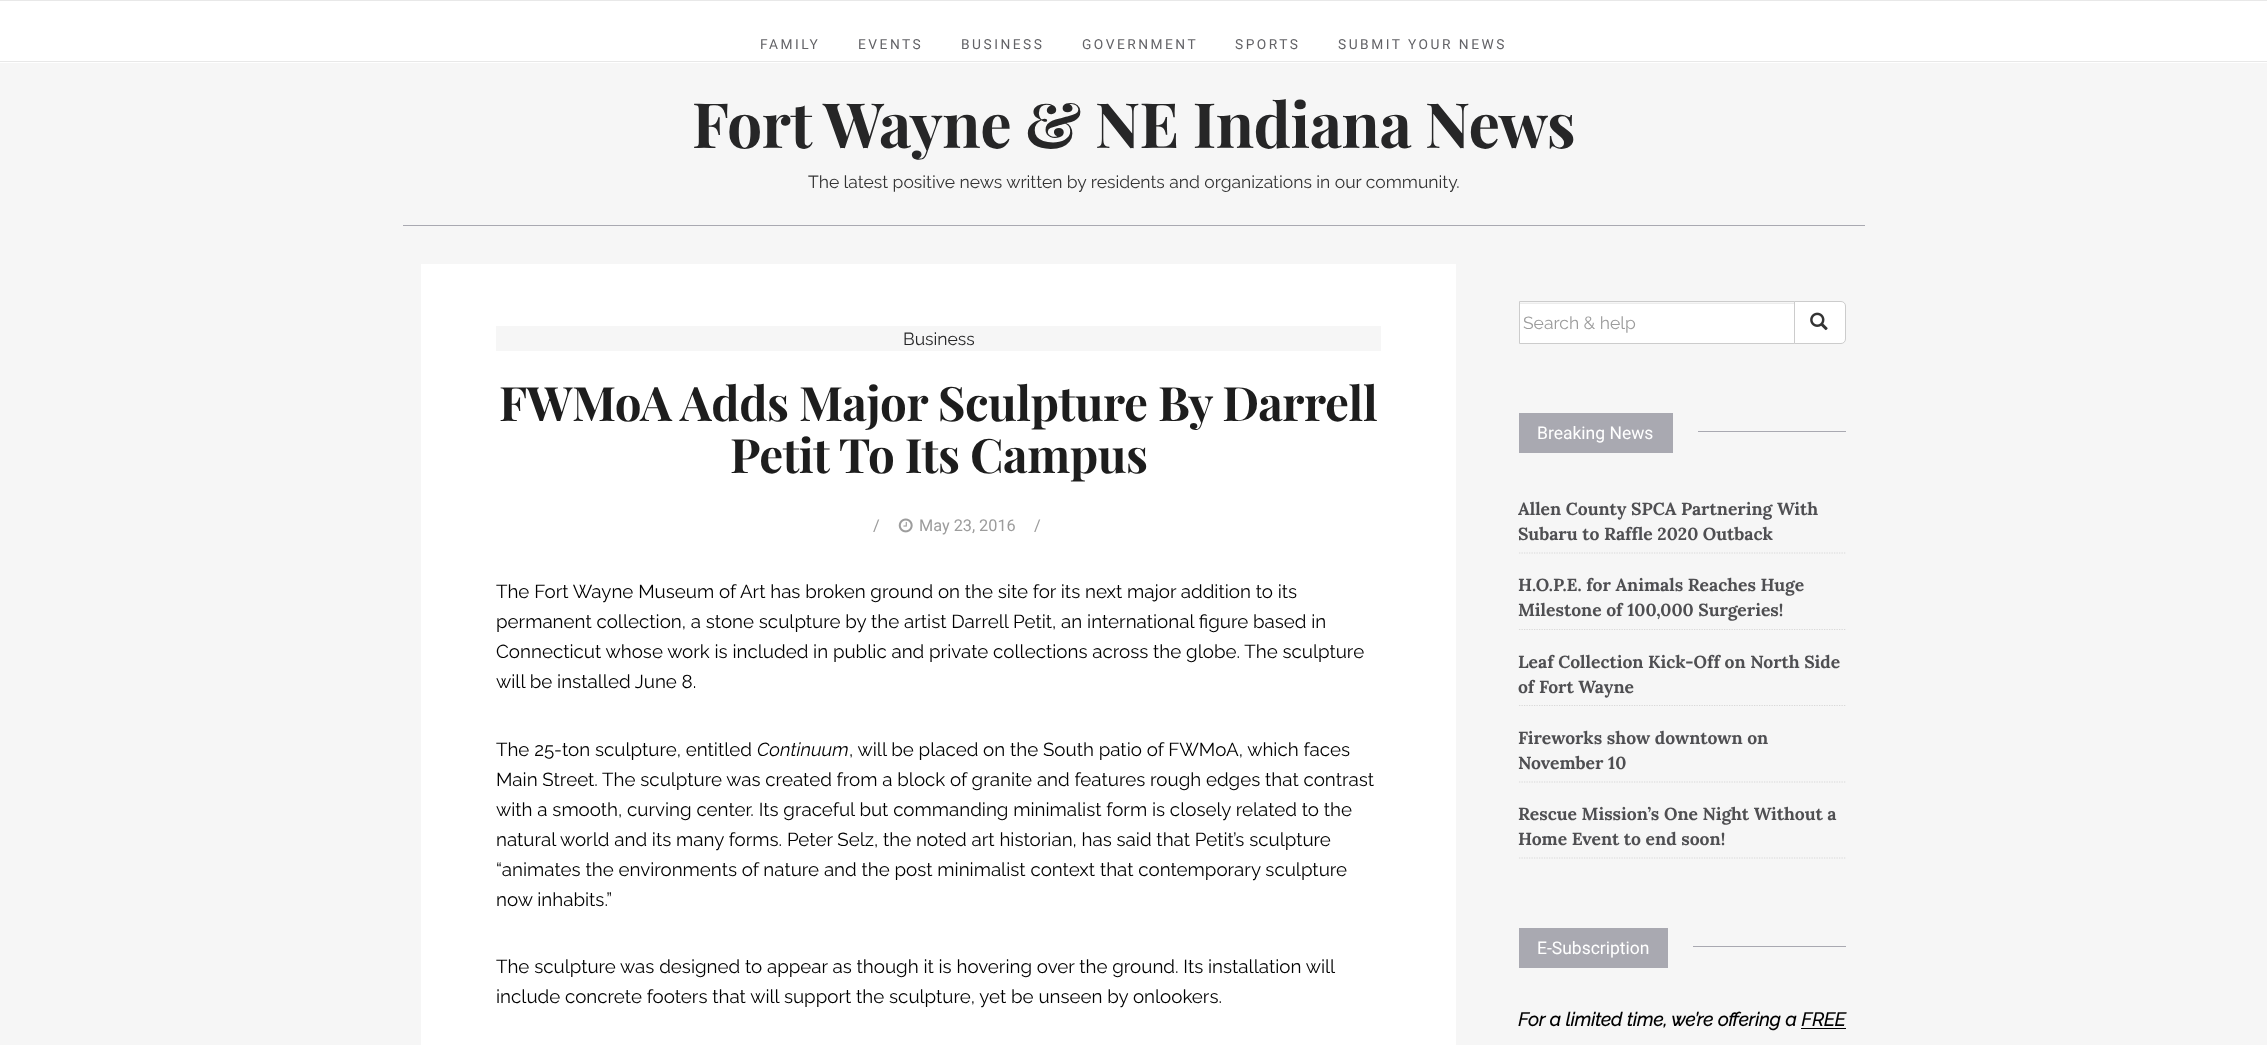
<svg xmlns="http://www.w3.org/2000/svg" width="2267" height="1045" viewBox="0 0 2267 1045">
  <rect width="100%" height="100%" fill="#f6f6f6"/>
  <path d="M0 1h2267v62H0z" fill="#fff"/>
  <path d="M0 0h2267v1H0z" fill="#e8e8e8"/>
  <path d="M0 61h2267v1H0z" fill="#e8e8e8"/>
  <path d="M403 225h1462v1H403z" fill="#a9a9b1"/>
  <path d="M421 264h1035v781H421z" fill="#fff"/>
  <path d="M496 326h885v25H496z" fill="#f6f6f6"/>
  <image x="898" y="518" width="15" height="15" href="img/1.png"/>
  <path d="M1520 304h274v39H1520z" fill="#fff"/>
  <path d="M1520 303h274v1H1520z" fill="#ececec"/>
  <path d="M1519.5 301.5h275v42H1519.5z" fill="none" stroke="#ccc"/>
  <path d="M1794.5 301.5H1841C1843.5 301.5 1845.5 303.5 1845.5 306V339C1845.5 341.5 1843.5 343.5 1841 343.5H1794.5Z" fill="#fff" stroke="#ccc"/>
  <image x="1810" y="312" width="18" height="19" href="img/2.png"/>
  <path d="M1519 413h154v40H1519z" fill="#a9a9b1"/>
  <path d="M1698 431h148v1H1698z" fill="#a9a9b1"/>
  <path d="M1519 553H1846" fill="none" stroke="#d8d8d8" stroke-width="1.2" stroke-dasharray="1.25 1.25"/>
  <path d="M1519 629.5H1846" fill="none" stroke="#d8d8d8" stroke-width="1.2" stroke-dasharray="1.25 1.25"/>
  <path d="M1519 705.5H1846" fill="none" stroke="#d8d8d8" stroke-width="1.2" stroke-dasharray="1.25 1.25"/>
  <path d="M1519 782H1846" fill="none" stroke="#d8d8d8" stroke-width="1.2" stroke-dasharray="1.25 1.25"/>
  <path d="M1519 858H1846" fill="none" stroke="#d8d8d8" stroke-width="1.2" stroke-dasharray="1.25 1.25"/>
  <path d="M1519 928h149v40H1519z" fill="#a9a9b1"/>
  <path d="M1693 946h153v1H1693z" fill="#a9a9b1"/>
  <path d="M1801 1028h45v1H1801z" fill="#000"/>
  <g font-family="Roboto" font-size="13.75" letter-spacing="2.5" fill="#636367">
    <text x="760" y="49">FAMILY</text>
    <text x="858" y="49">EVENTS</text>
    <text x="961" y="49">BUSINESS</text>
    <text x="1082" y="49">GOVERNMENT</text>
    <text x="1235" y="49">SPORTS</text>
    <text x="1338" y="49">SUBMIT YOUR NEWS</text>
  </g>
  <text x="692" y="148" font-family="Playfair Display" font-size="62.5" font-weight="bold" letter-spacing="-0.5" fill="#262627">Fort Wayne &amp; NE Indiana News</text>
  <text x="808" y="188" font-family="Raleway" font-size="17.5" fill="#333">The latest positive news written by residents and organizations in our community.</text>
  <text x="903" y="345" font-family="Raleway" font-size="17.5" fill="#262627">Business</text>
  <g font-family="Playfair Display" font-size="47.5" font-weight="bold" letter-spacing="-0.5" fill="#1d1d1d">
    <text x="499" y="421">FWMoA Adds Major Sculpture By Darrell</text>
    <text x="730" y="473">Petit To Its Campus</text>
  </g>
  <g font-family="Roboto" font-size="16.25" fill="#9c9c9c">
    <text x="873" y="531">/</text>
    <text x="919" y="531">May 23, 2016</text>
    <text x="1034" y="531">/</text>
  </g>
  <g font-family="Raleway" font-size="18.75" fill="#000">
    <text x="496" y="598">The Fort Wayne Museum of Art has broken ground on the site for its next major addition to its</text>
    <text x="496" y="628">permanent collection, a stone sculpture by the artist Darrell Petit, an international figure based in</text>
    <text x="496" y="658">Connecticut whose work is included in public and private collections across the globe. The sculpture</text>
    <text x="496" y="688">will be installed June 8.</text>
    <text x="496" y="756">The 25-ton sculpture, entitled</text>
  </g>
  <text x="757" y="756" font-family="Raleway" font-size="18.75" font-weight="100" font-style="italic" fill="#000">Continuum</text>
  <g font-family="Raleway" font-size="18.75" fill="#000">
    <text x="849" y="756">, will be placed on the South patio of FWMoA, which faces</text>
    <text x="496" y="786">Main Street. The sculpture was created from a block of granite and features rough edges that contrast</text>
    <text x="496" y="816">with a smooth, curving center. Its graceful but commanding minimalist form is closely related to the</text>
    <text x="496" y="846">natural world and its many forms. Peter Selz, the noted art historian, has said that Petit’s sculpture</text>
    <text x="496" y="876">“animates the environments of nature and the post minimalist context that contemporary sculpture</text>
    <text x="496" y="906">now inhabits.”</text>
    <text x="496" y="973">The sculpture was designed to appear as though it is hovering over the ground. Its installation will</text>
    <text x="496" y="1003">include concrete footers that will support the sculpture, yet be unseen by onlookers.</text>
  </g>
  <text x="1523" y="329" font-family="Raleway" font-size="17.5" fill="#9c9c9c">Search &amp; help</text>
  <text x="1537" y="439" font-family="Roboto" font-size="17.5" fill="#fff">Breaking News</text>
  <g font-family="Lora" font-size="17.5" font-weight="bold" fill="#4f4f52">
    <text x="1518" y="515">Allen County SPCA Partnering With</text>
    <text x="1518" y="540">Subaru to Raffle 2020 Outback</text>
    <text x="1518" y="591">H.O.P.E. for Animals Reaches Huge</text>
    <text x="1518" y="616">Milestone of 100,000 Surgeries!</text>
    <text x="1518" y="668">Leaf Collection Kick-Off on North Side</text>
    <text x="1518" y="693">of Fort Wayne</text>
    <text x="1518" y="744">Fireworks show downtown on</text>
    <text x="1518" y="769">November 10</text>
    <text x="1518" y="820">Rescue Mission’s One Night Without a</text>
    <text x="1518" y="845">Home Event to end soon!</text>
  </g>
  <text x="1537" y="954" font-family="Roboto" font-size="17.5" fill="#fff">E-Subscription</text>
  <text x="1518" y="1026" font-family="Raleway" font-size="18.75" font-weight="bold" font-style="italic" fill="#000">For a limited time, we’re offering a FREE</text>
</svg>
